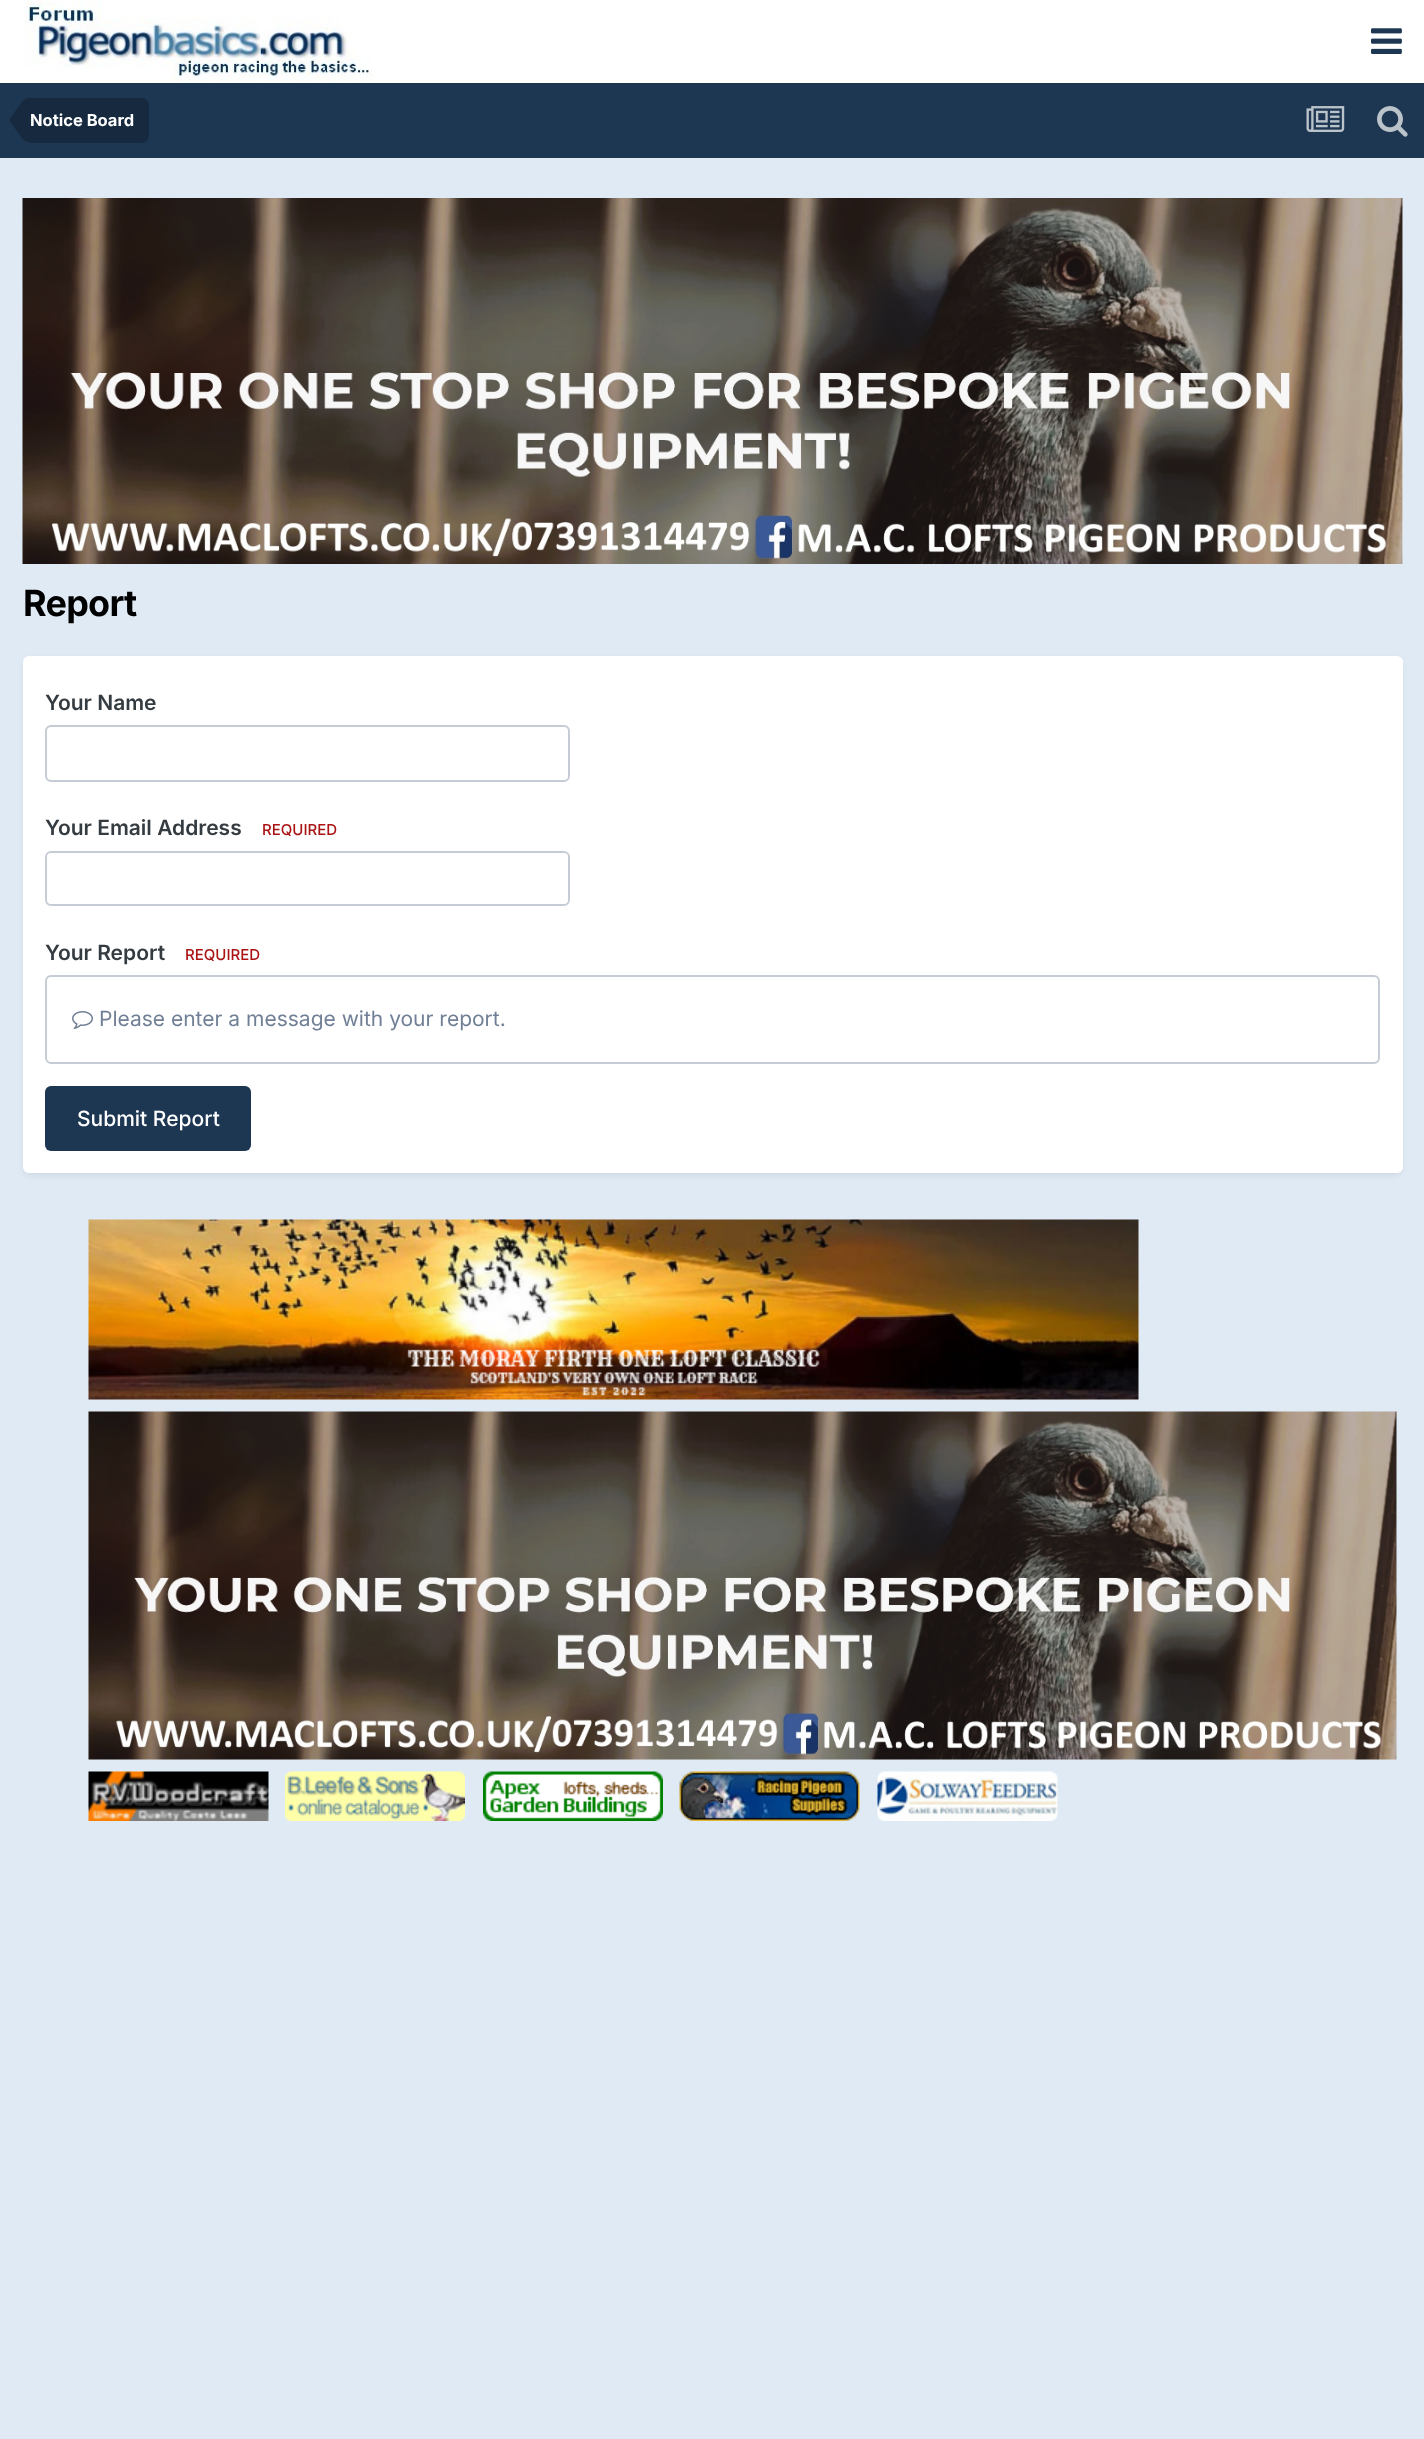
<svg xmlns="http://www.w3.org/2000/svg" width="1424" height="2439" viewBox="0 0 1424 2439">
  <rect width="100%" height="100%" fill="#e0eaf4"/>
  <path d="M0 0h1424v83H0z" fill="#fff"/>
  <image x="23" y="0" width="350" height="82" href="img/1.png"/>
  <image x="1371" y="28" width="31" height="26" href="img/2.png"/>
  <path d="M0 83h1424v75H0z" fill="#1d3652"/>
  <path d="M30 98H141C145.5 98 149 101.5 149 106V135C149 139.5 145.5 143 141 143H30Z" fill="#16293e"/>
  <path d="M30 120V142C27 142 24.5 141 22 138L10.5 122L10 120ZM30 120H10L10.5 118L22 102C24.5 99 27 98 30 98Z" fill="#16293e"/>
  <image x="1306" y="106" width="39" height="26" href="img/3.png"/>
  <image x="1377" y="106" width="31" height="31" href="img/4.png"/>
  <path d="M1402 198h1v366H1402z" fill="#f7fafc"/>
  <image x="22" y="198" width="1381" height="366" href="img/5.png"/>
  <rect x="24" y="660" width="1377" height="515" rx="5" fill="#2d37481a" filter="blur(3px)"/>
  <rect x="23" y="656" width="1380" height="517" rx="6" fill="#fff"/>
  <rect x="46" y="726" width="523" height="55" rx="5" fill="none" stroke="#c6ccd5" stroke-width="2"/>
  <rect x="46" y="852" width="523" height="53" rx="5" fill="none" stroke="#c6ccd5" stroke-width="2"/>
  <rect x="46" y="976" width="1333" height="87" rx="5" fill="none" stroke="#c6ccd5" stroke-width="2"/>
  <image x="72" y="1011" width="21" height="18" href="img/6.png"/>
  <rect x="45" y="1086" width="206" height="65" rx="6" fill="#1d3652"/>
  <image x="88" y="1219" width="1051" height="181" href="img/7.png"/>
  <image x="88" y="1411" width="1309" height="349" href="img/8.png"/>
  <image x="88" y="1771" width="181" height="50" href="img/9.png"/>
  <image x="285" y="1771" width="180" height="50" href="img/10.png"/>
  <image x="483" y="1771" width="180" height="50" href="img/11.png"/>
  <image x="679" y="1771" width="181" height="50" href="img/12.png"/>
  <image x="877" y="1771" width="181" height="50" href="img/13.png"/>
  <text x="30" y="126" font-family="Inter" font-size="16.5" font-weight="bold" fill="#fff">Notice Board</text>
  <text x="23" y="616" font-family="Inter" font-size="36" font-weight="bold" letter-spacing="-0.75" fill="#000">Report</text>
  <g font-family="Inter" font-size="21" font-weight="600" fill="#353c41">
    <text x="45" y="710">Your Name</text>
    <text x="45" y="835">Your Email Address</text>
  </g>
  <text x="262" y="835" font-family="Inter" font-size="15" font-weight="500" fill="#aa1414">REQUIRED</text>
  <text x="45" y="960" font-family="Inter" font-size="21" font-weight="600" fill="#353c41">Your Report</text>
  <text x="185" y="960" font-family="Inter" font-size="15" font-weight="500" fill="#aa1414">REQUIRED</text>
  <text x="99" y="1026" font-family="Inter" font-size="21" fill="#718096">Please enter a message with your report.</text>
  <text x="77" y="1126" font-family="Inter" font-size="21" font-weight="500" fill="#fff">Submit Report</text>
</svg>
